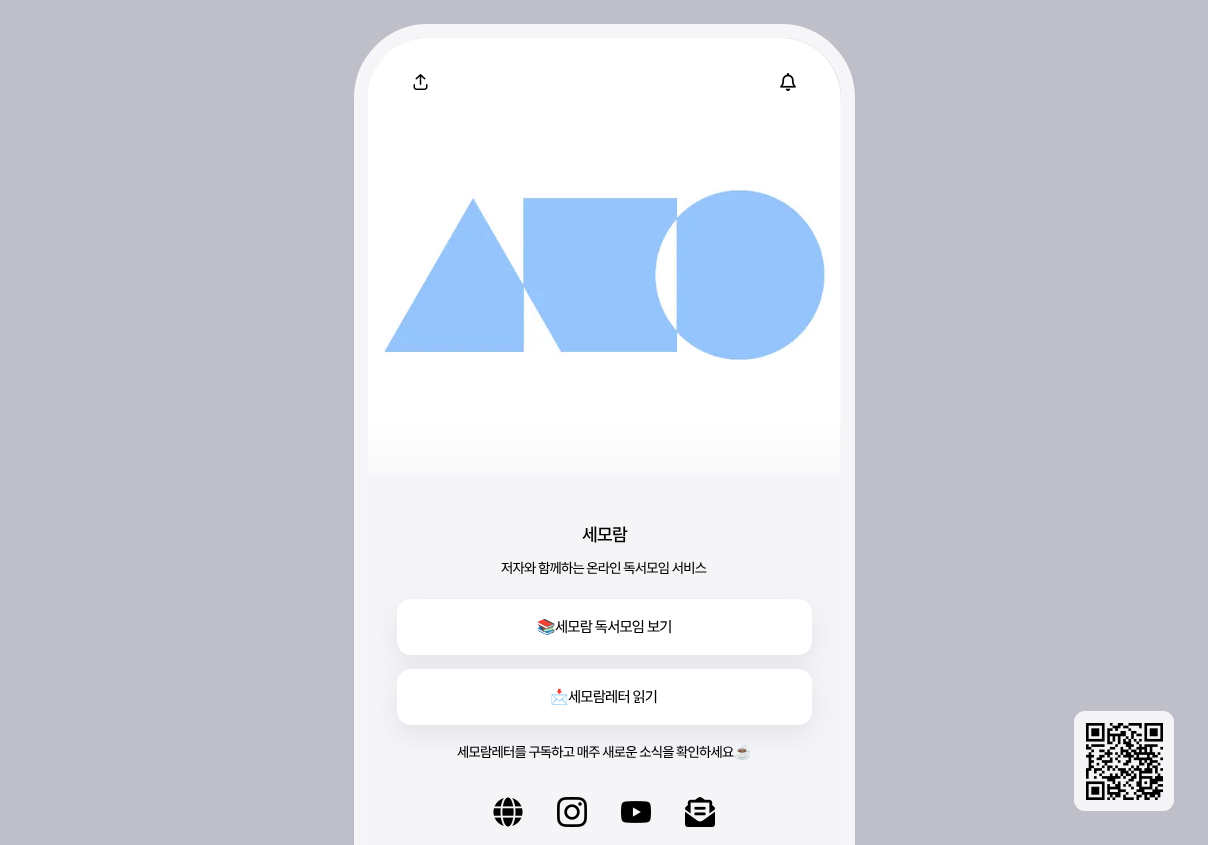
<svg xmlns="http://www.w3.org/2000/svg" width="1208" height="845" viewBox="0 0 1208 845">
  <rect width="100%" height="100%" fill="#bfbfca"/>
  <rect x="368" y="48" width="473" height="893" rx="60" fill="#00000014" filter="blur(12px)"/>
  <path d="M428 31H781C818 31 848 61 848 98V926H361V98C361 61 391 31 428 31Z" fill="none" stroke="#f6f6f9" stroke-width="14"/>
  <path d="M428 38H781C814 38 841 65 841 98V845H368V98C368 65 395 38 428 38Z" fill="#f5f5f8"/>
  <image x="368" y="38" width="473" height="435" href="img/3.png"/>
  <image x="413" y="74" width="15" height="16" href="img/1.png"/>
  <image x="780" y="73" width="16" height="18" href="img/2.png"/>
  <rect x="397" y="609" width="415" height="56" rx="14" fill="#171d2e14" filter="blur(12px)"/>
  <rect x="397" y="599" width="415" height="56" rx="14" fill="#fff"/>
  <rect x="397" y="679" width="415" height="56" rx="14" fill="#171d2e14" filter="blur(12px)"/>
  <rect x="397" y="669" width="415" height="56" rx="14" fill="#fff"/>
  <image x="493" y="797" width="30" height="30" href="img/4.png"/>
  <image x="557" y="797" width="30" height="30" href="img/5.png"/>
  <image x="621" y="801" width="30" height="22" href="img/6.png"/>
  <image x="685" y="797" width="30" height="30" href="img/7.png"/>
  <rect x="1074" y="711" width="100" height="100" rx="11" fill="#f5f5f8"/>
  <image x="1086" y="723" width="77" height="77" href="img/8.png"/>
  <text x="582" y="541" font-family="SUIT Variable" font-size="18" font-weight="600" letter-spacing="-0.75" fill="#000">세모람</text>
  <text x="501" y="573" font-family="SUIT Variable" font-size="14" font-weight="500" letter-spacing="-0.75" fill="#000">저자와 함께하는 온라인 독서모임 서비스</text>
  <text x="537" y="632" font-family="Noto Color Emoji" font-size="15" letter-spacing="-0.75" fill="#000">📚</text>
  <text x="555" y="632" font-family="SUIT Variable" font-size="15" font-weight="500" letter-spacing="-0.75" fill="#000">세모람 독서모임 보기</text>
  <text x="550" y="702" font-family="Noto Color Emoji" font-size="15" letter-spacing="-0.75" fill="#000">📩</text>
  <text x="568" y="702" font-family="SUIT Variable" font-size="15" font-weight="500" letter-spacing="-0.75" fill="#000">세모람레터 읽기</text>
  <text x="457" y="757" font-family="SUIT Variable" font-size="14" font-weight="500" letter-spacing="-0.75" fill="#000">세모람레터를 구독하고 매주 새로운 소식을 확인하세요</text>
  <text x="734" y="757" font-family="Noto Color Emoji" font-size="14" letter-spacing="-0.75" fill="#000">☕</text>
</svg>
